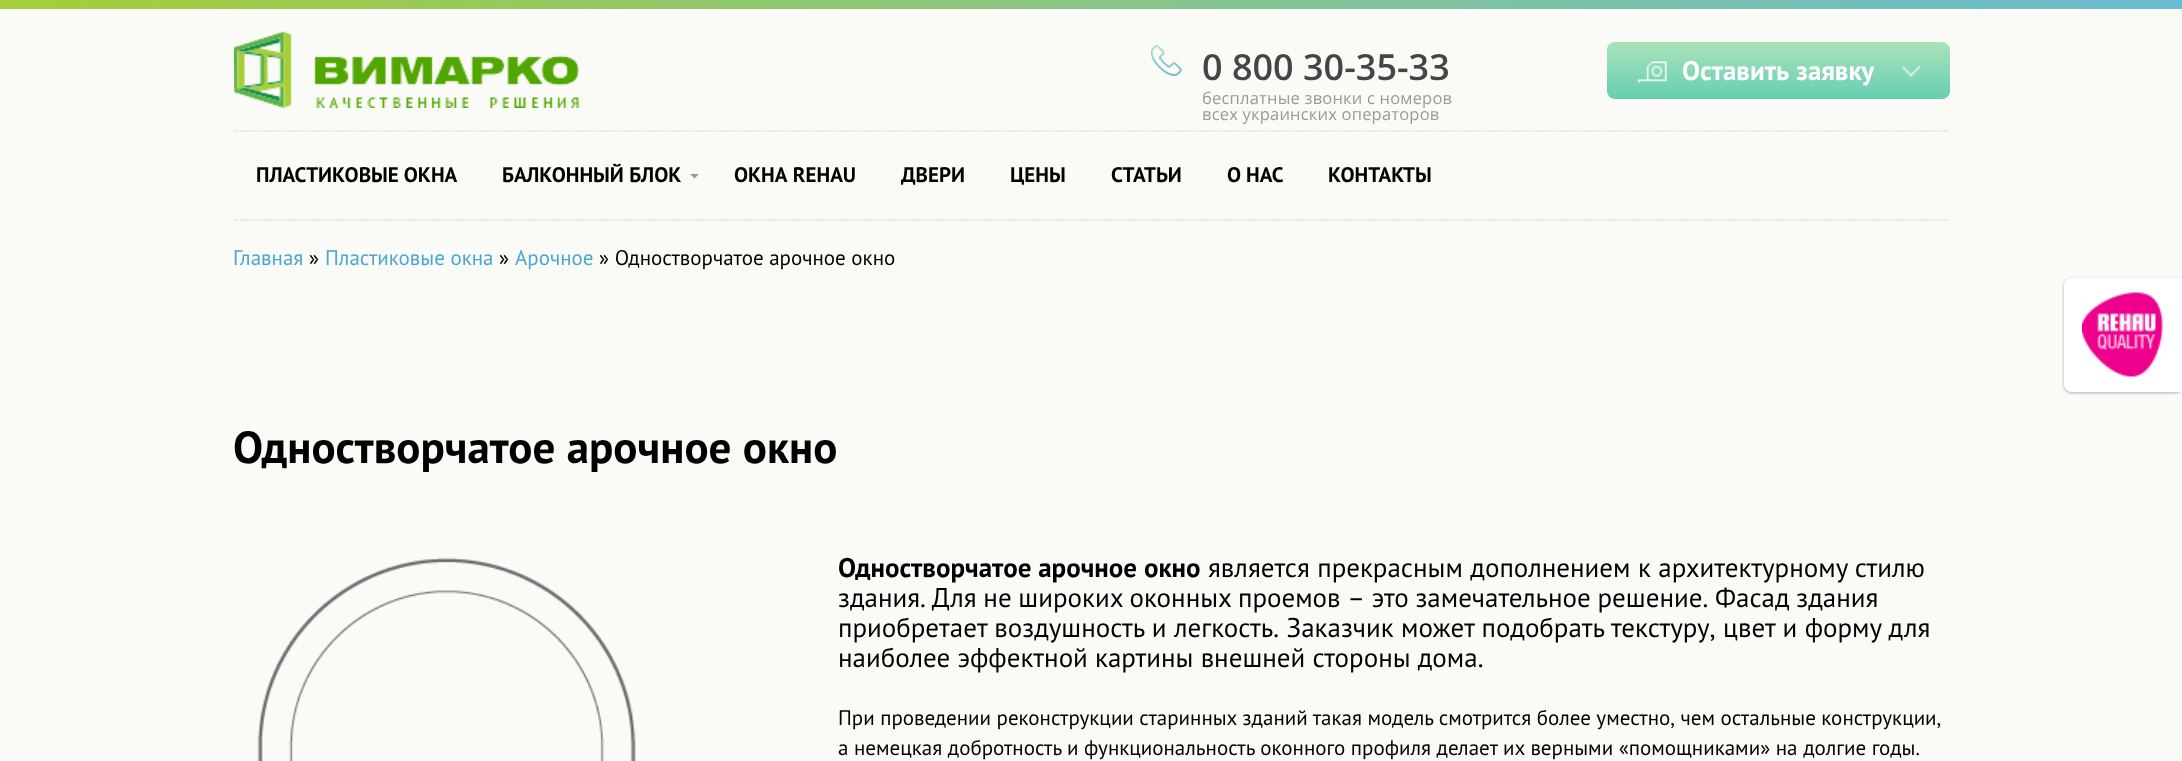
<svg xmlns="http://www.w3.org/2000/svg" width="2182" height="761" viewBox="0 0 2182 761">
  <defs>
    <linearGradient id="g1" gradientUnits="userSpaceOnUse" x1="0" y1="4.5" x2="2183" y2="4.5"><stop offset="0" stop-color="#a6ce39"/><stop offset="1" stop-color="#6abcd3"/></linearGradient>
    <linearGradient id="g2" gradientUnits="userSpaceOnUse" x1="1778" y1="42" x2="1778" y2="99"><stop offset="0" stop-color="#a9e3b8"/><stop offset="1" stop-color="#67ceb2"/></linearGradient>
  </defs>
  <rect width="100%" height="100%" fill="#fafbf7"/>
  <path d="M0 0h2182v9H0z" fill="url(#g1)"/>
  <image x="234" y="31" width="345" height="77" href="img/1.png"/>
  <image x="1151" y="45" width="31" height="31" href="img/2.png"/>
  <rect x="1607" y="42" width="343" height="57" rx="8" fill="url(#g2)"/>
  <image x="1637" y="61" width="30" height="22" href="img/3.png"/>
  <image x="1902" y="66" width="18" height="11" href="img/4.png"/>
  <path d="M234 131H1950" fill="none" stroke="#d6d7d3" stroke-width="1.5" stroke-dasharray="1.5 1.5"/>
  <path d="M690 174H699L694.5 178.5Z" fill="#999"/>
  <path d="M234 220H1950" fill="none" stroke="#d6d7d3" stroke-width="1.5" stroke-dasharray="1.5 1.5"/>
  <rect x="2064" y="279" width="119" height="114" rx="8" fill="#0000004d" filter="blur(1.5px)"/>
  <path d="M2072 278H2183V392H2072C2067.5 392 2064 388.5 2064 384V286C2064 281.5 2067.5 278 2072 278Z" fill="#fff"/>
  <image x="2082" y="292" width="81" height="85" href="img/5.png"/>
  <image x="257" y="557" width="379" height="204" href="img/6.png"/>
  <text x="1202" y="80" font-family="Open Sans" font-size="36" font-weight="600" fill="#454545">0 800 30-35-33</text>
  <g font-family="Open Sans" font-size="16.5" letter-spacing="0.2" fill="#999">
    <text x="1202" y="104">бесплатные звонки с номеров</text>
    <text x="1202" y="120">всех украинских операторов</text>
  </g>
  <text x="1682" y="80" word-spacing="1" font-family="PT Sans" font-size="27" font-weight="bold" fill="#fff">Оставить заявку</text>
  <g font-family="PT Sans" font-size="21" font-weight="bold" fill="#000">
    <text x="256" y="182">ПЛАСТИКОВЫЕ ОКНА</text>
    <text x="502" y="182">БАЛКОННЫЙ БЛОК</text>
    <text x="734" y="182" word-spacing="1">ОКНА REHAU</text>
    <text x="901" y="182">ДВЕРИ</text>
    <text x="1010" y="182">ЦЕНЫ</text>
    <text x="1111" y="182">СТАТЬИ</text>
    <text x="1227" y="182">О НАС</text>
    <text x="1328" y="182">КОНТАКТЫ</text>
  </g>
  <text x="233" y="265" font-family="PT Sans" font-size="21" fill="#4aa8cf">Главная</text>
  <text x="309" y="265" font-family="PT Sans" font-size="21" fill="#000">»</text>
  <text x="325" y="265" font-family="PT Sans" font-size="21" fill="#4aa8cf">Пластиковые окна</text>
  <text x="499" y="265" font-family="PT Sans" font-size="21" fill="#000">»</text>
  <text x="515" y="265" font-family="PT Sans" font-size="21" fill="#4aa8cf">Арочное</text>
  <text x="599" y="265" font-family="PT Sans" font-size="21" fill="#000">» Одностворчатое арочное окно</text>
  <text x="233" y="463" font-family="PT Sans" font-size="45" font-weight="bold" fill="#000">Одностворчатое арочное окно</text>
  <text x="838" y="577" font-family="PT Sans" font-size="27" font-weight="bold" fill="#000">Одностворчатое арочное окно</text>
  <g font-family="PT Sans" font-size="27" fill="#000">
    <text x="1208" y="577" word-spacing="0.25">является прекрасным дополнением к архитектурному стилю</text>
    <text x="838" y="607" word-spacing="-0.5">здания. Для не широких оконных проемов – это замечательное решение. Фасад здания</text>
    <text x="838" y="637" word-spacing="0.25">приобретает воздушность и легкость. Заказчик может подобрать текстуру, цвет и форму для</text>
    <text x="838" y="667">наиболее эффектной картины внешней стороны дома.</text>
  </g>
  <g font-family="PT Sans" font-size="21" fill="#000">
    <text x="838" y="725" word-spacing="-0.1">При проведении реконструкции старинных зданий такая модель смотрится более уместно, чем остальные конструкции,</text>
    <text x="838" y="755">а немецкая добротность и функциональность оконного профиля делает их верными «помощниками» на долгие годы.</text>
  </g>
</svg>
